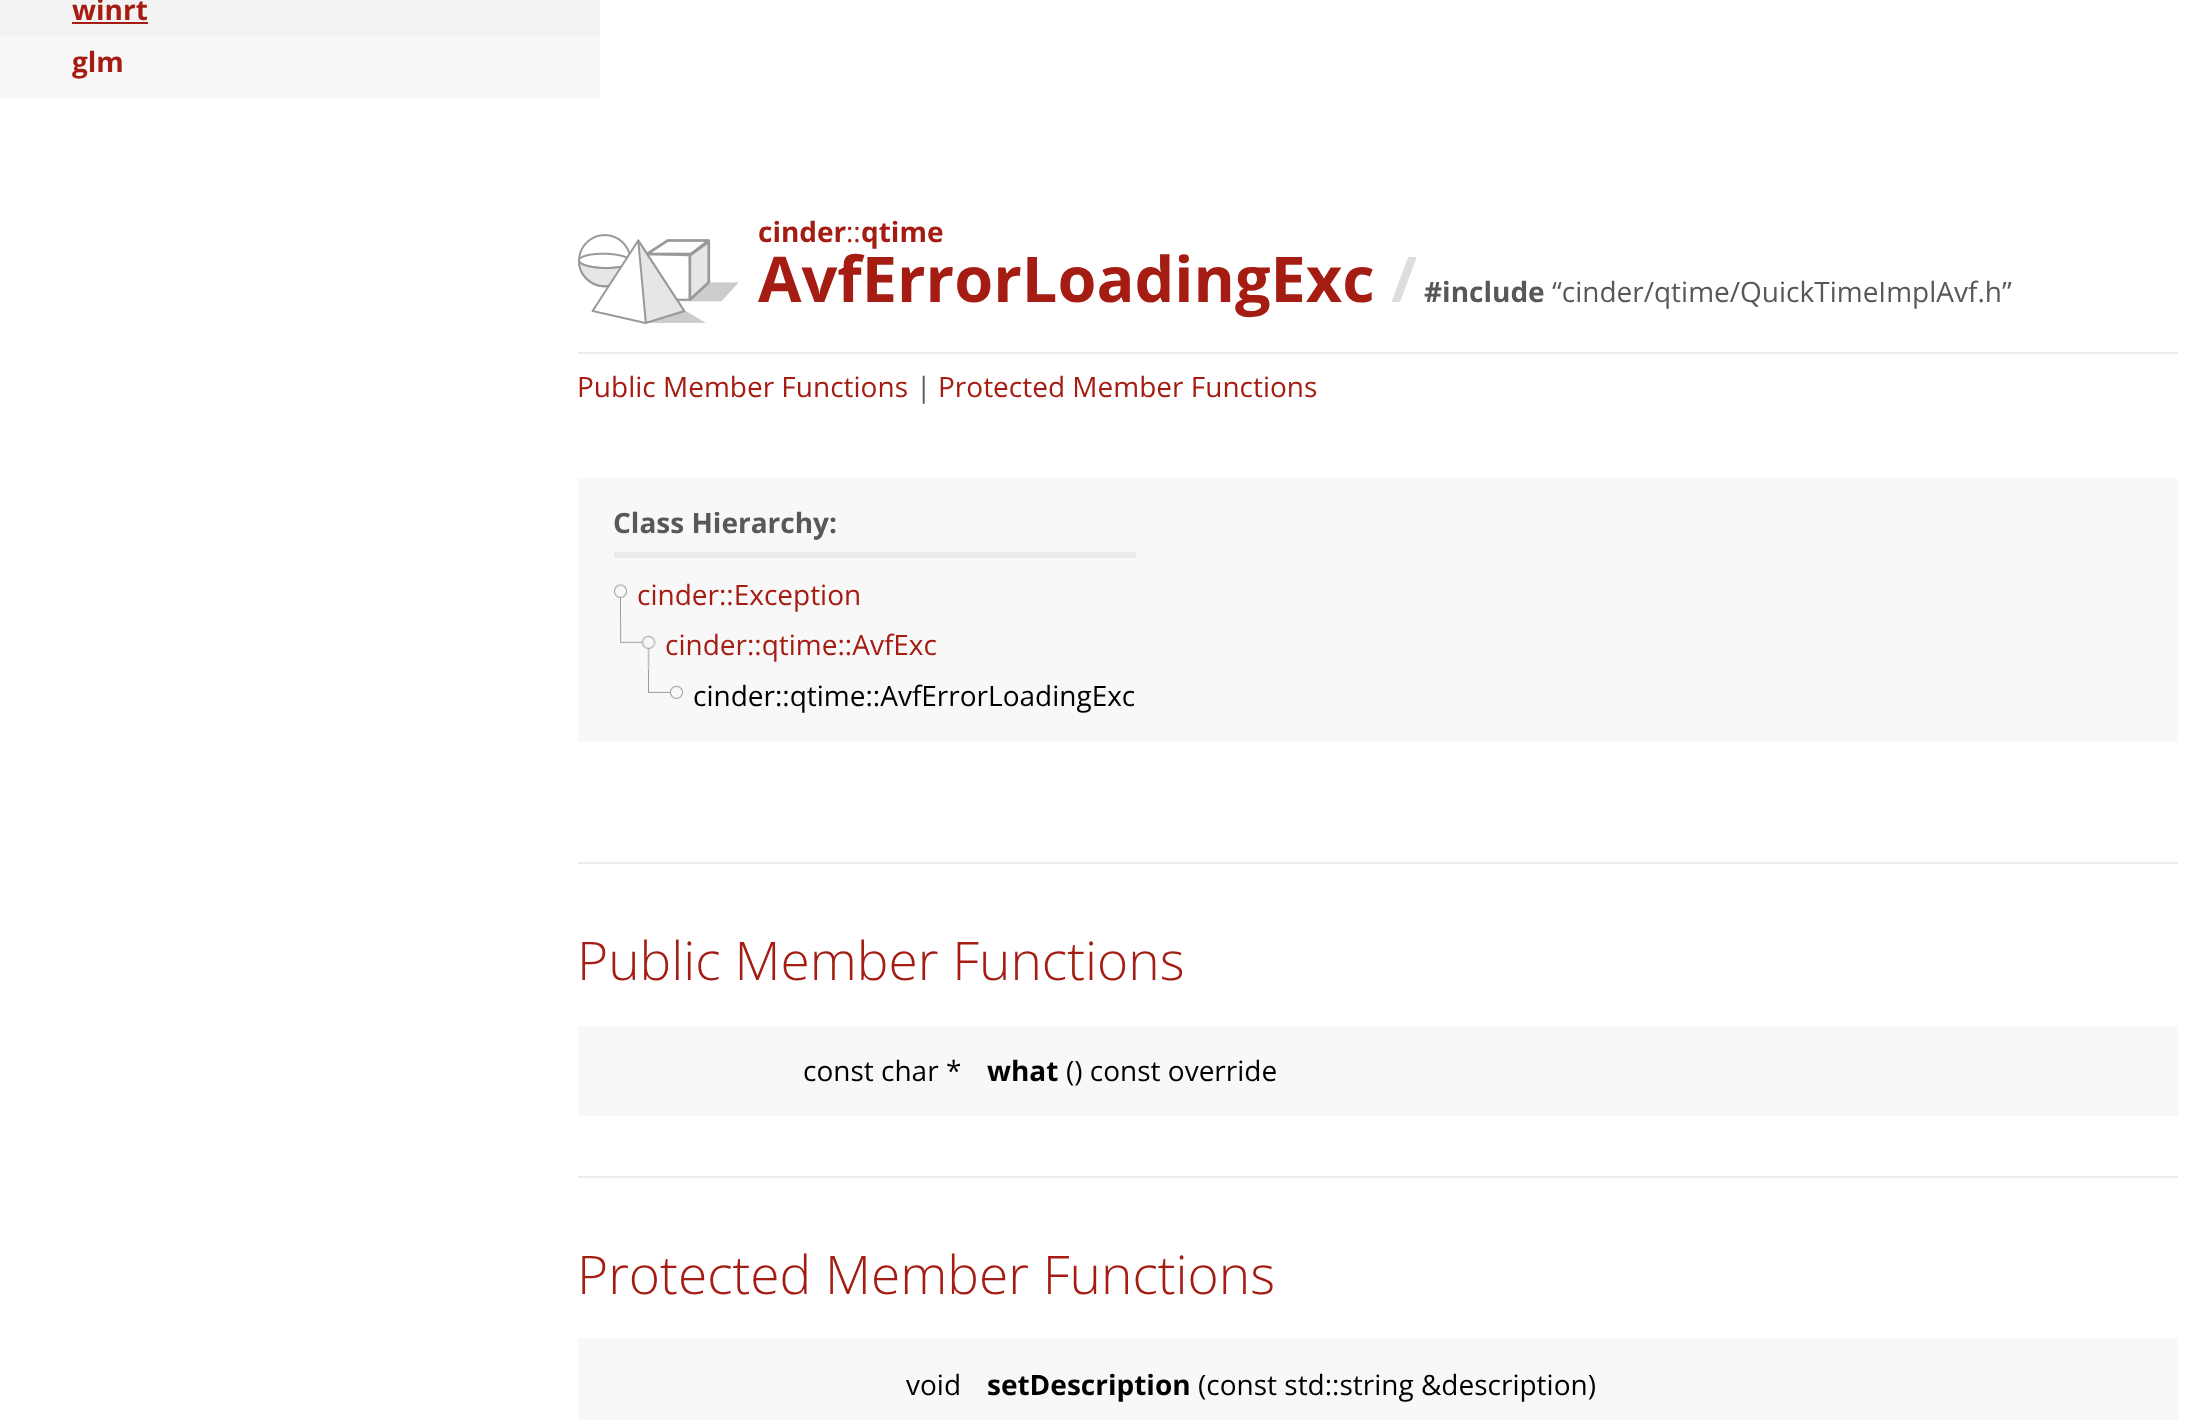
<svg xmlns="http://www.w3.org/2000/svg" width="2203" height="1420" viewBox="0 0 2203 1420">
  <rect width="100%" height="100%" fill="#fff"/>
  <path d="M0 36h600v62H0z" fill="#f8f8f8"/>
  <path d="M0 0h600v36H0z" fill="#f3f3f3"/>
  <path d="M72 22h76v2H72z" fill="#a41c12"/>
  <path d="M578 352h1600v2H578z" fill="#ebebeb"/>
  <image x="578" y="234" width="160" height="90" href="img/1.png"/>
  <path d="M578 478h1600v264H578z" fill="#f8f8f8"/>
  <path d="M614 552h522v6H614z" fill="#ebebeb"/>
  <image x="614" y="584" width="13" height="36" href="img/2.png"/>
  <image x="620" y="620" width="36" height="50" href="img/3.png"/>
  <image x="648" y="670" width="35" height="29" href="img/4.png"/>
  <path d="M578 862h1600v2H578z" fill="#ebebeb"/>
  <path d="M578 1026h1600v90H578z" fill="#f8f8f8"/>
  <path d="M578 1176h1600v2H578z" fill="#ebebeb"/>
  <path d="M578 1338h1600v82H578z" fill="#f8f8f8"/>
  <g font-family="Open Sans" font-size="28" font-weight="bold" fill="#a41c12">
    <text x="72" y="20">winrt</text>
    <text x="72" y="72">glm</text>
    <text x="758" y="242">cinder</text>
  </g>
  <text x="846" y="242" font-family="Open Sans" font-size="28" fill="#a41c12">::</text>
  <text x="861" y="242" font-family="Open Sans" font-size="28" font-weight="bold" fill="#a41c12">qtime</text>
  <text x="758" y="302" font-family="Open Sans" font-size="63" font-weight="bold" fill="#a41c12">AvfErrorLoadingExc</text>
  <text x="1391" y="302" font-family="Open Sans" font-size="63" font-weight="bold" fill="#ddd">/</text>
  <text x="1424" y="302" font-family="Open Sans" font-size="28" font-weight="bold" fill="#585858">#include</text>
  <text x="1552" y="302" font-family="Open Sans" font-size="28" fill="#585858">“cinder/qtime/QuickTimeImplAvf.h”</text>
  <text x="577" y="397" font-family="Open Sans" font-size="28" fill="#a41c12">Public Member Functions</text>
  <text x="916" y="397" font-family="Open Sans" font-size="28" fill="#585858">|</text>
  <text x="938" y="397" font-family="Open Sans" font-size="28" fill="#a41c12">Protected Member Functions</text>
  <text x="613" y="533" font-family="Open Sans" font-size="28" font-weight="bold" fill="#585858">Class Hierarchy:</text>
  <g font-family="Open Sans" font-size="28" fill="#a41c12">
    <text x="637" y="605">cinder::Exception</text>
    <text x="665" y="655">cinder::qtime::AvfExc</text>
  </g>
  <text x="693" y="706" font-family="Open Sans" font-size="28" fill="#000">cinder::qtime::AvfErrorLoadingExc</text>
  <text x="577" y="980" font-family="Open Sans" font-size="53.25" font-weight="300" fill="#a41c12">Public Member Functions</text>
  <text x="803" y="1081" font-family="Open Sans" font-size="28" fill="#000">const char *</text>
  <text x="987" y="1081" font-family="Open Sans" font-size="28" font-weight="bold" fill="#000">what</text>
  <text x="1066" y="1081" font-family="Open Sans" font-size="28" fill="#000">() const override</text>
  <text x="577" y="1294" font-family="Open Sans" font-size="53.25" font-weight="300" fill="#a41c12">Protected Member Functions</text>
  <text x="906" y="1395" font-family="Open Sans" font-size="28" fill="#000">void</text>
  <text x="987" y="1395" font-family="Open Sans" font-size="28" font-weight="bold" fill="#000">setDescription</text>
  <text x="1198" y="1395" font-family="Open Sans" font-size="28" fill="#000">(const std::string &amp;description)</text>
</svg>
